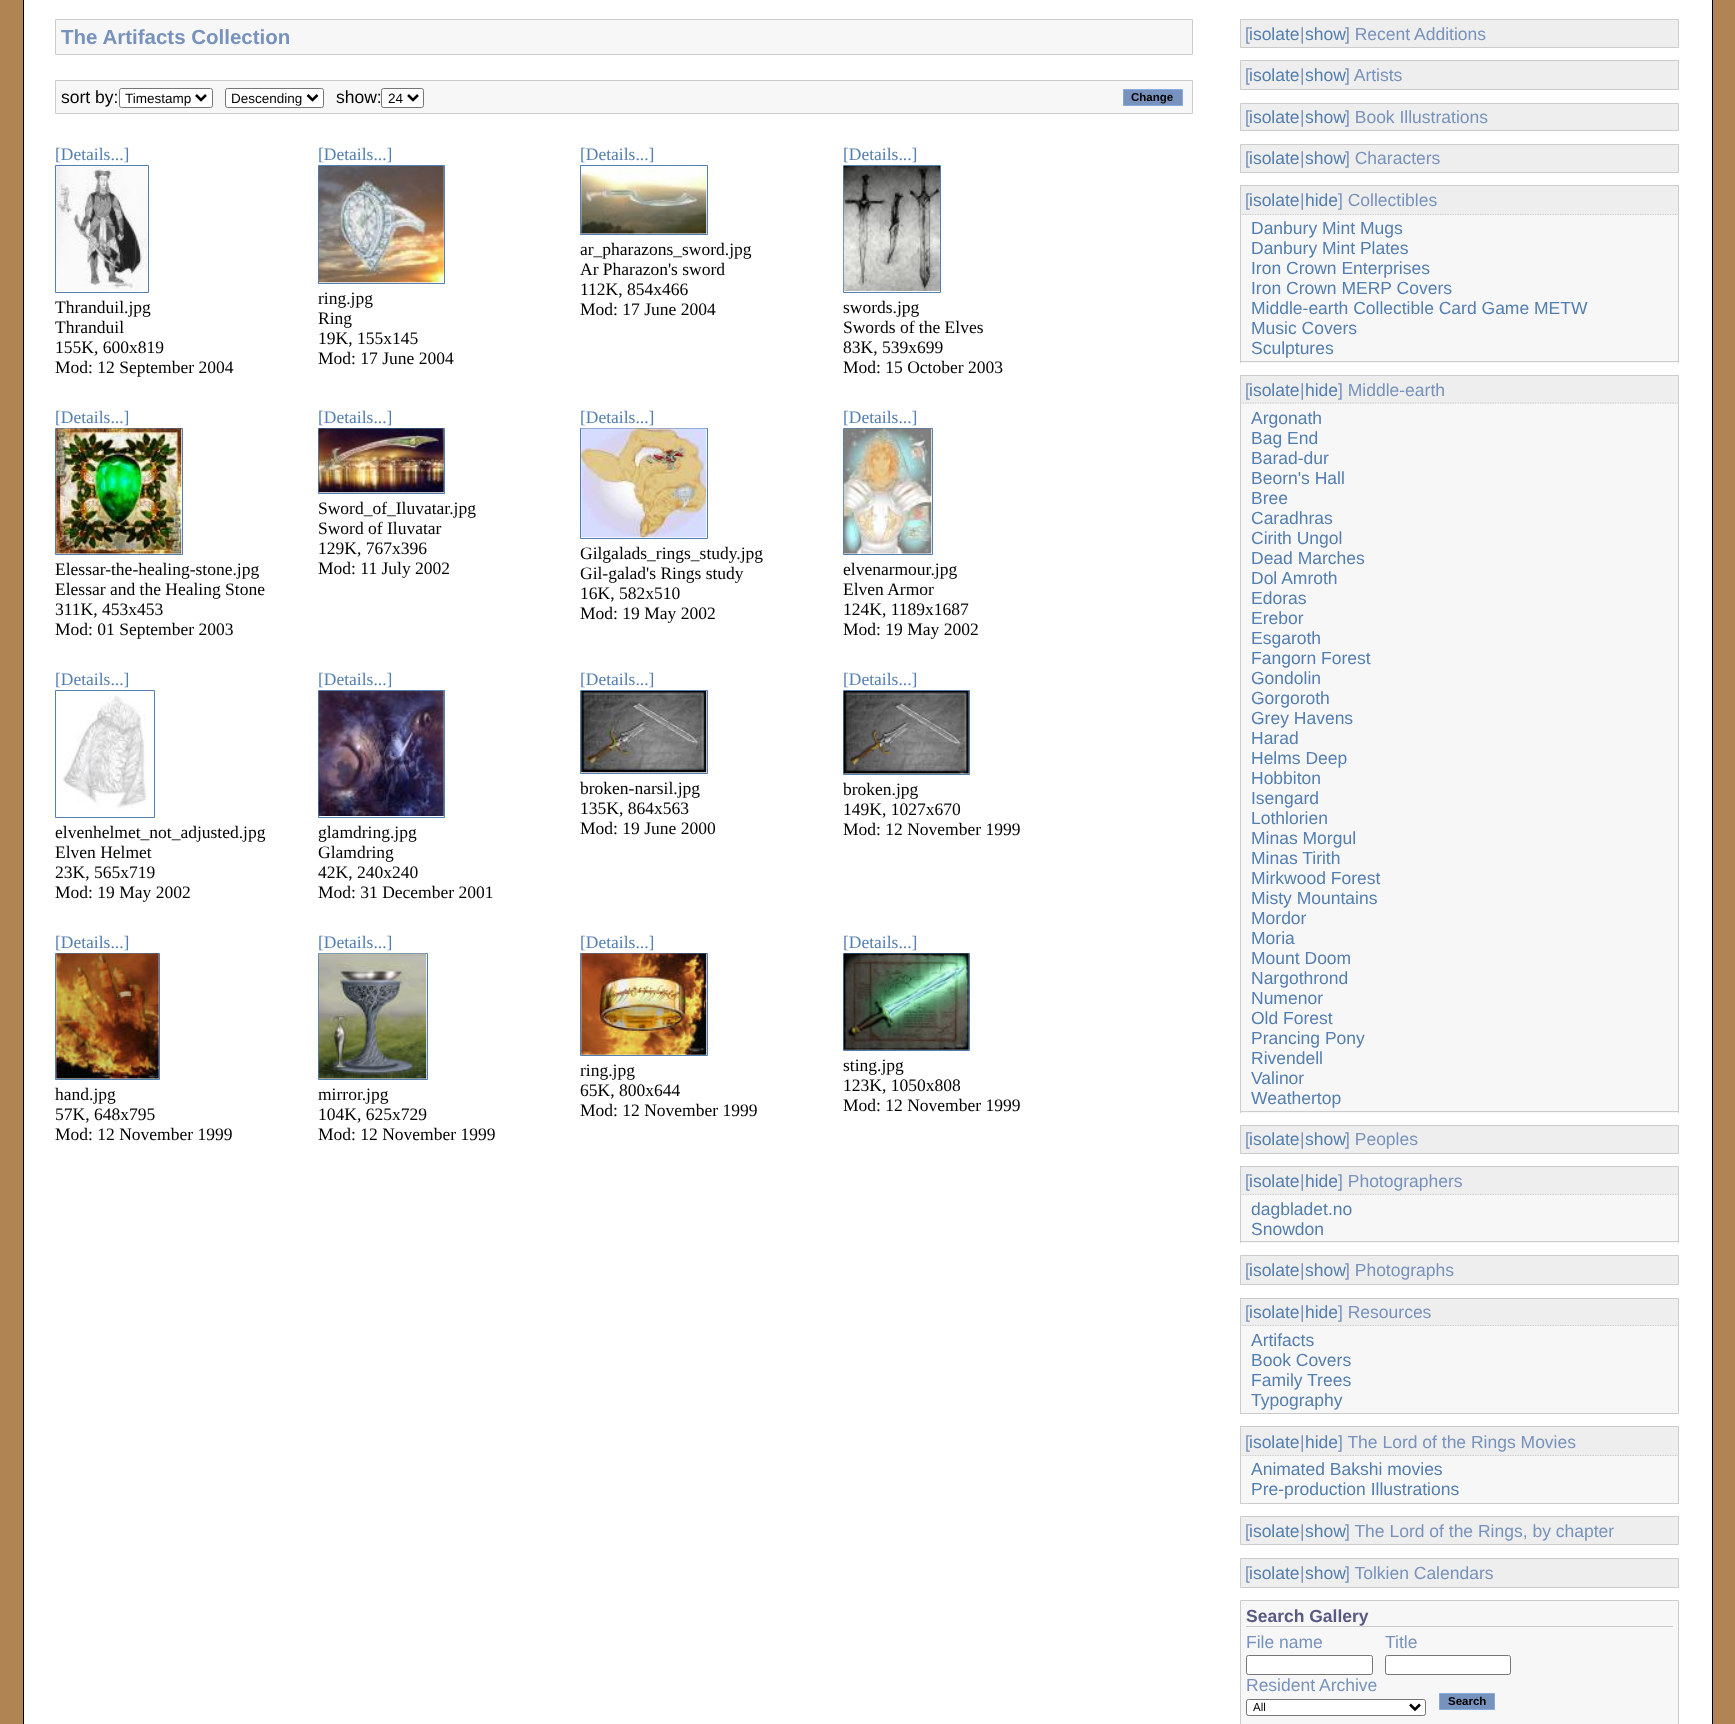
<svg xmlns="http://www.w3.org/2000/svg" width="1735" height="1724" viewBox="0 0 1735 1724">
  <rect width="100%" height="100%" fill="#b08553"/>
  <path d="M23.5 -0.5h1689v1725H23.5z" fill="#fff" stroke="#000"/>
  <path d="M55.5 19.5h1137v35H55.5z" fill="#f7f7f7" stroke="#ccc"/>
  <path d="M55.5 80.5h1137v33H55.5z" fill="#f7f7f7" stroke="#ccc"/>
  <rect x="119.5" y="88.5" width="93" height="19" rx="2" fill="#fff" stroke="#767676"/>
  <path d="M196 95L201 100L206 95" fill="none" stroke="#000" stroke-width="2.5"/>
  <rect x="225.5" y="88.5" width="98" height="19" rx="2" fill="#fff" stroke="#767676"/>
  <path d="M307.5 95L312.5 100L317.5 95" fill="none" stroke="#000" stroke-width="2.5"/>
  <rect x="381.5" y="88.5" width="42" height="19" rx="2" fill="#fff" stroke="#767676"/>
  <path d="M408 95L413 100L418 95" fill="none" stroke="#000" stroke-width="2.5"/>
  <path d="M1123.5 89.5h59v16H1123.5z" fill="#7792bc" stroke="#8ad"/>
  <path d="M55.5 165.5h93v127H55.5z" fill="none" stroke="#537eb0"/>
  <image x="56" y="166" width="92" height="125" href="img/1.png"/>
  <path d="M318.5 165.5h126v118H318.5z" fill="none" stroke="#537eb0"/>
  <image x="318" y="166" width="126" height="117" href="img/2.png"/>
  <path d="M580.5 165.5h127v69H580.5z" fill="none" stroke="#537eb0"/>
  <image x="581" y="166" width="126" height="68" href="img/3.png"/>
  <path d="M843.5 165.5h97v127H843.5z" fill="none" stroke="#537eb0"/>
  <image x="843" y="166" width="97" height="125" href="img/4.png"/>
  <path d="M55.5 428.5h127v126H55.5z" fill="none" stroke="#537eb0"/>
  <image x="56" y="428" width="126" height="126" href="img/5.png"/>
  <path d="M318.5 428.5h126v65H318.5z" fill="none" stroke="#537eb0"/>
  <image x="318" y="428" width="126" height="65" href="img/6.png"/>
  <path d="M580.5 428.5h127v110H580.5z" fill="none" stroke="#537eb0"/>
  <image x="581" y="428" width="126" height="110" href="img/7.png"/>
  <path d="M843.5 428.5h89v126H843.5z" fill="none" stroke="#537eb0"/>
  <image x="843" y="428" width="89" height="126" href="img/8.png"/>
  <path d="M55.5 690.5h99v127H55.5z" fill="none" stroke="#537eb0"/>
  <image x="62" y="691" width="85" height="118" href="img/9.png"/>
  <path d="M318.5 690.5h126v127H318.5z" fill="none" stroke="#537eb0"/>
  <image x="318" y="691" width="126" height="125" href="img/10.png"/>
  <path d="M580.5 690.5h127v83H580.5z" fill="none" stroke="#537eb0"/>
  <image x="581" y="691" width="126" height="82" href="img/11.png"/>
  <path d="M843.5 690.5h126v84H843.5z" fill="none" stroke="#537eb0"/>
  <image x="843" y="691" width="126" height="83" href="img/12.png"/>
  <path d="M55.5 953.5h104v126H55.5z" fill="none" stroke="#537eb0"/>
  <image x="56" y="953" width="103" height="126" href="img/13.png"/>
  <path d="M318.5 953.5h109v126H318.5z" fill="none" stroke="#537eb0"/>
  <image x="318" y="953" width="109" height="126" href="img/14.png"/>
  <path d="M580.5 953.5h127v102H580.5z" fill="none" stroke="#537eb0"/>
  <image x="581" y="953" width="126" height="102" href="img/15.png"/>
  <path d="M843.5 953.5h126v97H843.5z" fill="none" stroke="#537eb0"/>
  <image x="843" y="953" width="126" height="97" href="img/16.png"/>
  <path d="M1240.5 19.5h438v28H1240.5z" fill="#eee" stroke="#ccc"/>
  <path d="M1240.5 60.5h438v29H1240.5z" fill="#eee" stroke="#ccc"/>
  <path d="M1240.5 103.5h438v27H1240.5z" fill="#eee" stroke="#ccc"/>
  <path d="M1240.5 144.5h438v28H1240.5z" fill="#eee" stroke="#ccc"/>
  <path d="M1241 186h437v29H1241z" fill="#eee"/>
  <path d="M1240 185h439v1H1240z" fill="#ccc"/>
  <path d="M1678 185h1v30H1678z" fill="#ccc"/>
  <path d="M1240 214.5H1679" fill="none" stroke="#ccc" stroke-width="1.2" stroke-dasharray="1.25 1.25"/>
  <path d="M1240 185h1v30H1240z" fill="#ccc"/>
  <path d="M1241 215h437v148H1241z" fill="#f7f7f7"/>
  <path d="M1678 215h1v148H1678z" fill="#ccc"/>
  <path d="M1240 361h439v1H1240z" fill="#ccc"/>
  <path d="M1240 215h1v148H1240z" fill="#ccc"/>
  <path d="M1241 376h437v28H1241z" fill="#eee"/>
  <path d="M1240 375h439v1H1240z" fill="#ccc"/>
  <path d="M1678 375h1v738H1678z" fill="#ccc"/>
  <path d="M1240 403H1679" fill="none" stroke="#ccc" stroke-width="1.2" stroke-dasharray="1.25 1.25"/>
  <path d="M1240 375h1v29H1240z" fill="#ccc"/>
  <path d="M1241 404h437v709H1241z" fill="#f7f7f7"/>
  <path d="M1240 1111h439v1H1240z" fill="#ccc"/>
  <path d="M1240 404h1v709H1240z" fill="#ccc"/>
  <path d="M1240.5 1125.5h438v28H1240.5z" fill="#eee" stroke="#ccc"/>
  <path d="M1241 1167h437v28H1241z" fill="#eee"/>
  <path d="M1240 1166h439v1H1240z" fill="#ccc"/>
  <path d="M1678 1166h1v29H1678z" fill="#ccc"/>
  <path d="M1240 1194.5H1679" fill="none" stroke="#ccc" stroke-width="1.2" stroke-dasharray="1.25 1.25"/>
  <path d="M1240 1166h1v29H1240z" fill="#ccc"/>
  <path d="M1241 1195h437v48H1241z" fill="#f7f7f7"/>
  <path d="M1678 1195h1v48H1678z" fill="#ccc"/>
  <path d="M1240 1241h439v1H1240z" fill="#ccc"/>
  <path d="M1240 1195h1v48H1240z" fill="#ccc"/>
  <path d="M1240.5 1255.5h438v29H1240.5z" fill="#eee" stroke="#ccc"/>
  <path d="M1241 1299h437v27H1241z" fill="#eee"/>
  <path d="M1240 1298h439v1H1240z" fill="#ccc"/>
  <path d="M1678 1298h1v28H1678z" fill="#ccc"/>
  <path d="M1240 1325.5H1679" fill="none" stroke="#ccc" stroke-width="1.2" stroke-dasharray="1.25 1.25"/>
  <path d="M1240 1298h1v28H1240z" fill="#ccc"/>
  <path d="M1241 1326h437v87H1241z" fill="#f7f7f7"/>
  <path d="M1678 1326h1v88H1678z" fill="#ccc"/>
  <path d="M1240 1413h439v1H1240z" fill="#ccc"/>
  <path d="M1240 1326h1v88H1240z" fill="#ccc"/>
  <path d="M1241 1427h437v29H1241z" fill="#eee"/>
  <path d="M1240 1426h439v1H1240z" fill="#ccc"/>
  <path d="M1678 1426h1v30H1678z" fill="#ccc"/>
  <path d="M1240 1455.5H1679" fill="none" stroke="#ccc" stroke-width="1.2" stroke-dasharray="1.25 1.25"/>
  <path d="M1240 1426h1v30H1240z" fill="#ccc"/>
  <path d="M1241 1456h437v47H1241z" fill="#f7f7f7"/>
  <path d="M1678 1456h1v48H1678z" fill="#ccc"/>
  <path d="M1240 1503h439v1H1240z" fill="#ccc"/>
  <path d="M1240 1456h1v48H1240z" fill="#ccc"/>
  <path d="M1240.5 1516.5h438v28H1240.5z" fill="#eee" stroke="#ccc"/>
  <path d="M1240.5 1558.5h438v29H1240.5z" fill="#eee" stroke="#ccc"/>
  <path d="M1240.5 1600.5h438v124H1240.5z" fill="#f7f7f7" stroke="#ccc"/>
  <path d="M1246 1626h427v1H1246z" fill="#ccc"/>
  <rect x="1246.5" y="1655.5" width="126" height="19" rx="2" fill="#fff" stroke="#767676"/>
  <rect x="1385.5" y="1655.5" width="125" height="19" rx="2" fill="#fff" stroke="#767676"/>
  <rect x="1246.5" y="1699.5" width="179" height="16" rx="2" fill="#fff" stroke="#767676"/>
  <path d="M1410 1704.5L1415 1709.5L1420 1704.5" fill="none" stroke="#000" stroke-width="2.5"/>
  <path d="M1439.5 1693.5h55v16H1439.5z" fill="#7792bc" stroke="#8ad"/>
  <text x="61" y="44" font-family="Liberation Sans" font-size="20.5" font-weight="bold" fill="#7792bc">The Artifacts Collection</text>
  <text x="61" y="103" font-family="Liberation Sans" font-size="17.5" fill="#000">sort by:</text>
  <g font-family="Liberation Sans" font-size="13.5" fill="#000">
    <text x="125" y="103">Timestamp</text>
    <text x="231" y="103">Descending</text>
  </g>
  <text x="336" y="103" font-family="Liberation Sans" font-size="17.5" fill="#000">show:</text>
  <text x="388" y="103" font-family="Liberation Sans" font-size="13.5" fill="#000">24</text>
  <text x="1131" y="101" font-family="Liberation Sans" font-size="11.5" font-weight="bold" fill="#000">Change</text>
  <text x="55" y="160" font-family="Liberation Serif" font-size="17.5" fill="#537eb0">[Details...]</text>
  <g font-family="Liberation Serif" font-size="17.5" fill="#000">
    <text x="55" y="313">Thranduil.jpg</text>
    <text x="55" y="333">Thranduil</text>
    <text x="55" y="353">155K, 600x819</text>
    <text x="55" y="373">Mod: 12 September 2004</text>
  </g>
  <text x="318" y="160" font-family="Liberation Serif" font-size="17.5" fill="#537eb0">[Details...]</text>
  <g font-family="Liberation Serif" font-size="17.5" fill="#000">
    <text x="318" y="304">ring.jpg</text>
    <text x="318" y="324">Ring</text>
    <text x="318" y="344">19K, 155x145</text>
    <text x="318" y="364">Mod: 17 June 2004</text>
  </g>
  <text x="580" y="160" font-family="Liberation Serif" font-size="17.5" fill="#537eb0">[Details...]</text>
  <g font-family="Liberation Serif" font-size="17.5" fill="#000">
    <text x="580" y="255">ar_pharazons_sword.jpg</text>
    <text x="580" y="275">Ar Pharazon's sword</text>
    <text x="580" y="295">112K, 854x466</text>
    <text x="580" y="315">Mod: 17 June 2004</text>
  </g>
  <text x="843" y="160" font-family="Liberation Serif" font-size="17.5" fill="#537eb0">[Details...]</text>
  <g font-family="Liberation Serif" font-size="17.5" fill="#000">
    <text x="843" y="313">swords.jpg</text>
    <text x="843" y="333">Swords of the Elves</text>
    <text x="843" y="353">83K, 539x699</text>
    <text x="843" y="373">Mod: 15 October 2003</text>
  </g>
  <text x="55" y="423" font-family="Liberation Serif" font-size="17.5" fill="#537eb0">[Details...]</text>
  <g font-family="Liberation Serif" font-size="17.5" fill="#000">
    <text x="55" y="575">Elessar-the-healing-stone.jpg</text>
    <text x="55" y="595">Elessar and the Healing Stone</text>
    <text x="55" y="615">311K, 453x453</text>
    <text x="55" y="635">Mod: 01 September 2003</text>
  </g>
  <text x="318" y="423" font-family="Liberation Serif" font-size="17.5" fill="#537eb0">[Details...]</text>
  <g font-family="Liberation Serif" font-size="17.5" fill="#000">
    <text x="318" y="514">Sword_of_Iluvatar.jpg</text>
    <text x="318" y="534">Sword of Iluvatar</text>
    <text x="318" y="554">129K, 767x396</text>
    <text x="318" y="574">Mod: 11 July 2002</text>
  </g>
  <text x="580" y="423" font-family="Liberation Serif" font-size="17.5" fill="#537eb0">[Details...]</text>
  <g font-family="Liberation Serif" font-size="17.5" fill="#000">
    <text x="580" y="559">Gilgalads_rings_study.jpg</text>
    <text x="580" y="579">Gil-galad's Rings study</text>
    <text x="580" y="599">16K, 582x510</text>
    <text x="580" y="619">Mod: 19 May 2002</text>
  </g>
  <text x="843" y="423" font-family="Liberation Serif" font-size="17.5" fill="#537eb0">[Details...]</text>
  <g font-family="Liberation Serif" font-size="17.5" fill="#000">
    <text x="843" y="575">elvenarmour.jpg</text>
    <text x="843" y="595">Elven Armor</text>
    <text x="843" y="615">124K, 1189x1687</text>
    <text x="843" y="635">Mod: 19 May 2002</text>
  </g>
  <text x="55" y="685" font-family="Liberation Serif" font-size="17.5" fill="#537eb0">[Details...]</text>
  <g font-family="Liberation Serif" font-size="17.5" fill="#000">
    <text x="55" y="838">elvenhelmet_not_adjusted.jpg</text>
    <text x="55" y="858">Elven Helmet</text>
    <text x="55" y="878">23K, 565x719</text>
    <text x="55" y="898">Mod: 19 May 2002</text>
  </g>
  <text x="318" y="685" font-family="Liberation Serif" font-size="17.5" fill="#537eb0">[Details...]</text>
  <g font-family="Liberation Serif" font-size="17.5" fill="#000">
    <text x="318" y="838">glamdring.jpg</text>
    <text x="318" y="858">Glamdring</text>
    <text x="318" y="878">42K, 240x240</text>
    <text x="318" y="898">Mod: 31 December 2001</text>
  </g>
  <text x="580" y="685" font-family="Liberation Serif" font-size="17.5" fill="#537eb0">[Details...]</text>
  <g font-family="Liberation Serif" font-size="17.5" fill="#000">
    <text x="580" y="794">broken-narsil.jpg</text>
    <text x="580" y="814">135K, 864x563</text>
    <text x="580" y="834">Mod: 19 June 2000</text>
  </g>
  <text x="843" y="685" font-family="Liberation Serif" font-size="17.5" fill="#537eb0">[Details...]</text>
  <g font-family="Liberation Serif" font-size="17.5" fill="#000">
    <text x="843" y="795">broken.jpg</text>
    <text x="843" y="815">149K, 1027x670</text>
    <text x="843" y="835">Mod: 12 November 1999</text>
  </g>
  <text x="55" y="948" font-family="Liberation Serif" font-size="17.5" fill="#537eb0">[Details...]</text>
  <g font-family="Liberation Serif" font-size="17.5" fill="#000">
    <text x="55" y="1100">hand.jpg</text>
    <text x="55" y="1120">57K, 648x795</text>
    <text x="55" y="1140">Mod: 12 November 1999</text>
  </g>
  <text x="318" y="948" font-family="Liberation Serif" font-size="17.5" fill="#537eb0">[Details...]</text>
  <g font-family="Liberation Serif" font-size="17.5" fill="#000">
    <text x="318" y="1100">mirror.jpg</text>
    <text x="318" y="1120">104K, 625x729</text>
    <text x="318" y="1140">Mod: 12 November 1999</text>
  </g>
  <text x="580" y="948" font-family="Liberation Serif" font-size="17.5" fill="#537eb0">[Details...]</text>
  <g font-family="Liberation Serif" font-size="17.5" fill="#000">
    <text x="580" y="1076">ring.jpg</text>
    <text x="580" y="1096">65K, 800x644</text>
    <text x="580" y="1116">Mod: 12 November 1999</text>
  </g>
  <text x="843" y="948" font-family="Liberation Serif" font-size="17.5" fill="#537eb0">[Details...]</text>
  <g font-family="Liberation Serif" font-size="17.5" fill="#000">
    <text x="843" y="1071">sting.jpg</text>
    <text x="843" y="1091">123K, 1050x808</text>
    <text x="843" y="1111">Mod: 12 November 1999</text>
  </g>
  <text x="1245" y="40" font-family="Liberation Sans" font-size="17.5" fill="#7792bc">[</text>
  <text x="1249" y="40" font-family="Liberation Sans" font-size="17.5" fill="#537eb0">isolate</text>
  <text x="1300" y="40" font-family="Liberation Sans" font-size="17.5" fill="#7792bc">|</text>
  <text x="1305" y="40" font-family="Liberation Sans" font-size="17.5" fill="#537eb0">show</text>
  <g font-family="Liberation Sans" font-size="17.5" fill="#7792bc">
    <text x="1345" y="40">] Recent Additions</text>
    <text x="1245" y="81">[</text>
  </g>
  <text x="1249" y="81" font-family="Liberation Sans" font-size="17.5" fill="#537eb0">isolate</text>
  <text x="1300" y="81" font-family="Liberation Sans" font-size="17.5" fill="#7792bc">|</text>
  <text x="1305" y="81" font-family="Liberation Sans" font-size="17.5" fill="#537eb0">show</text>
  <g font-family="Liberation Sans" font-size="17.5" fill="#7792bc">
    <text x="1345" y="81">] Artists</text>
    <text x="1245" y="123">[</text>
  </g>
  <text x="1249" y="123" font-family="Liberation Sans" font-size="17.5" fill="#537eb0">isolate</text>
  <text x="1300" y="123" font-family="Liberation Sans" font-size="17.5" fill="#7792bc">|</text>
  <text x="1305" y="123" font-family="Liberation Sans" font-size="17.5" fill="#537eb0">show</text>
  <g font-family="Liberation Sans" font-size="17.5" fill="#7792bc">
    <text x="1345" y="123">] Book Illustrations</text>
    <text x="1245" y="164">[</text>
  </g>
  <text x="1249" y="164" font-family="Liberation Sans" font-size="17.5" fill="#537eb0">isolate</text>
  <text x="1300" y="164" font-family="Liberation Sans" font-size="17.5" fill="#7792bc">|</text>
  <text x="1305" y="164" font-family="Liberation Sans" font-size="17.5" fill="#537eb0">show</text>
  <g font-family="Liberation Sans" font-size="17.5" fill="#7792bc">
    <text x="1345" y="164">] Characters</text>
    <text x="1245" y="206">[</text>
  </g>
  <text x="1249" y="206" font-family="Liberation Sans" font-size="17.5" fill="#537eb0">isolate</text>
  <text x="1300" y="206" font-family="Liberation Sans" font-size="17.5" fill="#7792bc">|</text>
  <text x="1305" y="206" font-family="Liberation Sans" font-size="17.5" fill="#537eb0">hide</text>
  <text x="1338" y="206" font-family="Liberation Sans" font-size="17.5" fill="#7792bc">] Collectibles</text>
  <g font-family="Liberation Sans" font-size="17.5" fill="#537eb0">
    <text x="1251" y="234">Danbury Mint Mugs</text>
    <text x="1251" y="254">Danbury Mint Plates</text>
    <text x="1251" y="274">Iron Crown Enterprises</text>
    <text x="1251" y="294">Iron Crown MERP Covers</text>
    <text x="1251" y="314">Middle-earth Collectible Card Game METW</text>
    <text x="1251" y="334">Music Covers</text>
    <text x="1251" y="354">Sculptures</text>
  </g>
  <text x="1245" y="396" font-family="Liberation Sans" font-size="17.5" fill="#7792bc">[</text>
  <text x="1249" y="396" font-family="Liberation Sans" font-size="17.5" fill="#537eb0">isolate</text>
  <text x="1300" y="396" font-family="Liberation Sans" font-size="17.5" fill="#7792bc">|</text>
  <text x="1305" y="396" font-family="Liberation Sans" font-size="17.5" fill="#537eb0">hide</text>
  <text x="1338" y="396" font-family="Liberation Sans" font-size="17.5" fill="#7792bc">] Middle-earth</text>
  <g font-family="Liberation Sans" font-size="17.5" fill="#537eb0">
    <text x="1251" y="424">Argonath</text>
    <text x="1251" y="444">Bag End</text>
    <text x="1251" y="464">Barad-dur</text>
    <text x="1251" y="484">Beorn's Hall</text>
    <text x="1251" y="504">Bree</text>
    <text x="1251" y="524">Caradhras</text>
    <text x="1251" y="544">Cirith Ungol</text>
    <text x="1251" y="564">Dead Marches</text>
    <text x="1251" y="584">Dol Amroth</text>
    <text x="1251" y="604">Edoras</text>
    <text x="1251" y="624">Erebor</text>
    <text x="1251" y="644">Esgaroth</text>
    <text x="1251" y="664">Fangorn Forest</text>
    <text x="1251" y="684">Gondolin</text>
    <text x="1251" y="704">Gorgoroth</text>
    <text x="1251" y="724">Grey Havens</text>
    <text x="1251" y="744">Harad</text>
    <text x="1251" y="764">Helms Deep</text>
    <text x="1251" y="784">Hobbiton</text>
    <text x="1251" y="804">Isengard</text>
    <text x="1251" y="824">Lothlorien</text>
    <text x="1251" y="844">Minas Morgul</text>
    <text x="1251" y="864">Minas Tirith</text>
    <text x="1251" y="884">Mirkwood Forest</text>
    <text x="1251" y="904">Misty Mountains</text>
    <text x="1251" y="924">Mordor</text>
    <text x="1251" y="944">Moria</text>
    <text x="1251" y="964">Mount Doom</text>
    <text x="1251" y="984">Nargothrond</text>
    <text x="1251" y="1004">Numenor</text>
    <text x="1251" y="1024">Old Forest</text>
    <text x="1251" y="1044">Prancing Pony</text>
    <text x="1251" y="1064">Rivendell</text>
    <text x="1251" y="1084">Valinor</text>
    <text x="1251" y="1104">Weathertop</text>
  </g>
  <text x="1245" y="1145" font-family="Liberation Sans" font-size="17.5" fill="#7792bc">[</text>
  <text x="1249" y="1145" font-family="Liberation Sans" font-size="17.5" fill="#537eb0">isolate</text>
  <text x="1300" y="1145" font-family="Liberation Sans" font-size="17.5" fill="#7792bc">|</text>
  <text x="1305" y="1145" font-family="Liberation Sans" font-size="17.5" fill="#537eb0">show</text>
  <g font-family="Liberation Sans" font-size="17.5" fill="#7792bc">
    <text x="1345" y="1145">] Peoples</text>
    <text x="1245" y="1187">[</text>
  </g>
  <text x="1249" y="1187" font-family="Liberation Sans" font-size="17.5" fill="#537eb0">isolate</text>
  <text x="1300" y="1187" font-family="Liberation Sans" font-size="17.5" fill="#7792bc">|</text>
  <text x="1305" y="1187" font-family="Liberation Sans" font-size="17.5" fill="#537eb0">hide</text>
  <text x="1338" y="1187" font-family="Liberation Sans" font-size="17.5" fill="#7792bc">] Photographers</text>
  <g font-family="Liberation Sans" font-size="17.5" fill="#537eb0">
    <text x="1251" y="1215">dagbladet.no</text>
    <text x="1251" y="1235">Snowdon</text>
  </g>
  <text x="1245" y="1276" font-family="Liberation Sans" font-size="17.5" fill="#7792bc">[</text>
  <text x="1249" y="1276" font-family="Liberation Sans" font-size="17.5" fill="#537eb0">isolate</text>
  <text x="1300" y="1276" font-family="Liberation Sans" font-size="17.5" fill="#7792bc">|</text>
  <text x="1305" y="1276" font-family="Liberation Sans" font-size="17.5" fill="#537eb0">show</text>
  <g font-family="Liberation Sans" font-size="17.5" fill="#7792bc">
    <text x="1345" y="1276">] Photographs</text>
    <text x="1245" y="1318">[</text>
  </g>
  <text x="1249" y="1318" font-family="Liberation Sans" font-size="17.5" fill="#537eb0">isolate</text>
  <text x="1300" y="1318" font-family="Liberation Sans" font-size="17.5" fill="#7792bc">|</text>
  <text x="1305" y="1318" font-family="Liberation Sans" font-size="17.5" fill="#537eb0">hide</text>
  <text x="1338" y="1318" font-family="Liberation Sans" font-size="17.5" fill="#7792bc">] Resources</text>
  <g font-family="Liberation Sans" font-size="17.5" fill="#537eb0">
    <text x="1251" y="1346">Artifacts</text>
    <text x="1251" y="1366">Book Covers</text>
    <text x="1251" y="1386">Family Trees</text>
    <text x="1251" y="1406">Typography</text>
  </g>
  <text x="1245" y="1448" font-family="Liberation Sans" font-size="17.5" fill="#7792bc">[</text>
  <text x="1249" y="1448" font-family="Liberation Sans" font-size="17.5" fill="#537eb0">isolate</text>
  <text x="1300" y="1448" font-family="Liberation Sans" font-size="17.5" fill="#7792bc">|</text>
  <text x="1305" y="1448" font-family="Liberation Sans" font-size="17.5" fill="#537eb0">hide</text>
  <text x="1338" y="1448" font-family="Liberation Sans" font-size="17.5" fill="#7792bc">] The Lord of the Rings Movies</text>
  <g font-family="Liberation Sans" font-size="17.5" fill="#537eb0">
    <text x="1251" y="1475">Animated Bakshi movies</text>
    <text x="1251" y="1495">Pre-production Illustrations</text>
  </g>
  <text x="1245" y="1537" font-family="Liberation Sans" font-size="17.5" fill="#7792bc">[</text>
  <text x="1249" y="1537" font-family="Liberation Sans" font-size="17.5" fill="#537eb0">isolate</text>
  <text x="1300" y="1537" font-family="Liberation Sans" font-size="17.5" fill="#7792bc">|</text>
  <text x="1305" y="1537" font-family="Liberation Sans" font-size="17.5" fill="#537eb0">show</text>
  <g font-family="Liberation Sans" font-size="17.5" fill="#7792bc">
    <text x="1345" y="1537">] The Lord of the Rings, by chapter</text>
    <text x="1245" y="1579">[</text>
  </g>
  <text x="1249" y="1579" font-family="Liberation Sans" font-size="17.5" fill="#537eb0">isolate</text>
  <text x="1300" y="1579" font-family="Liberation Sans" font-size="17.5" fill="#7792bc">|</text>
  <text x="1305" y="1579" font-family="Liberation Sans" font-size="17.5" fill="#537eb0">show</text>
  <text x="1345" y="1579" font-family="Liberation Sans" font-size="17.5" fill="#7792bc">] Tolkien Calendars</text>
  <text x="1246" y="1622" font-family="Liberation Sans" font-size="17.5" font-weight="bold" fill="#595983">Search Gallery</text>
  <g font-family="Liberation Sans" font-size="17.5" fill="#7792bc">
    <text x="1246" y="1648">File name</text>
    <text x="1385" y="1648">Title</text>
    <text x="1246" y="1691">Resident Archive</text>
  </g>
  <text x="1253" y="1711" font-family="Liberation Sans" font-size="11.5" fill="#000">All</text>
  <text x="1448" y="1705" font-family="Liberation Sans" font-size="11.5" font-weight="bold" fill="#000">Search</text>
</svg>
